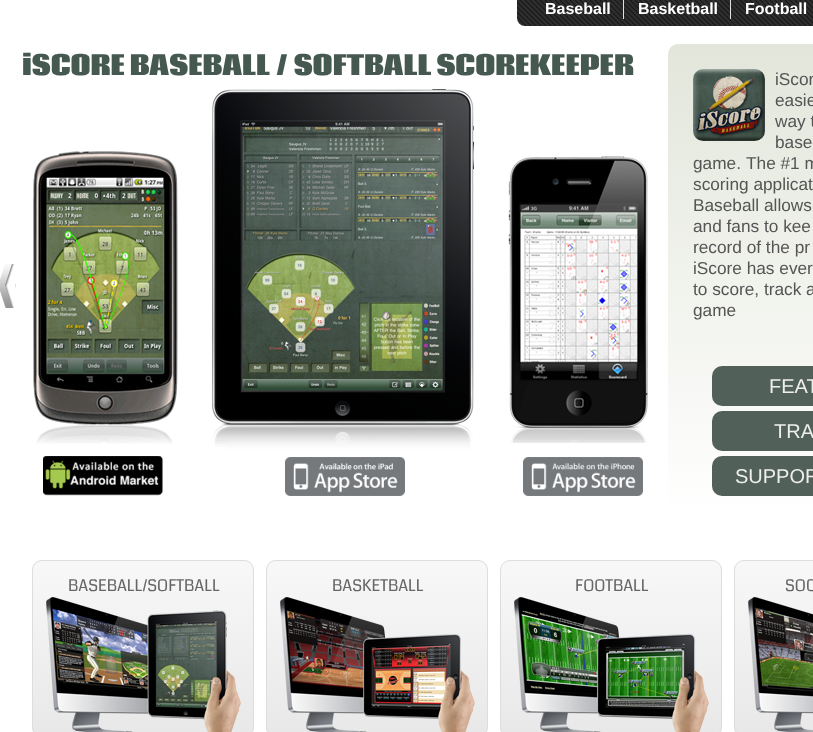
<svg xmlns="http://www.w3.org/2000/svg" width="813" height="732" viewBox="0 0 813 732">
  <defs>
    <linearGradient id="g1" gradientUnits="userSpaceOnUse" x1="668" y1="44" x2="668" y2="516"><stop offset="0" stop-color="#e2e6da"/><stop offset="1" stop-color="#fff"/></linearGradient>
    <clipPath id="clip1"><rect x="32" y="560" width="222" height="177" rx="10"/></clipPath>
    <linearGradient id="g2" gradientUnits="userSpaceOnUse" x1="33" y1="561" x2="33" y2="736"><stop offset="0" stop-color="#f8f8f8"/><stop offset="1" stop-color="#e8e8e8"/></linearGradient>
    <clipPath id="clip2"><rect x="266" y="560" width="222" height="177" rx="10"/></clipPath>
    <linearGradient id="g3" gradientUnits="userSpaceOnUse" x1="267" y1="561" x2="267" y2="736"><stop offset="0" stop-color="#f8f8f8"/><stop offset="1" stop-color="#e8e8e8"/></linearGradient>
    <clipPath id="clip3"><rect x="500" y="560" width="222" height="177" rx="10"/></clipPath>
    <linearGradient id="g4" gradientUnits="userSpaceOnUse" x1="501" y1="561" x2="501" y2="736"><stop offset="0" stop-color="#f8f8f8"/><stop offset="1" stop-color="#e8e8e8"/></linearGradient>
    <clipPath id="clip4"><rect x="734" y="560" width="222" height="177" rx="10"/></clipPath>
    <linearGradient id="g5" gradientUnits="userSpaceOnUse" x1="735" y1="561" x2="735" y2="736"><stop offset="0" stop-color="#f8f8f8"/><stop offset="1" stop-color="#e8e8e8"/></linearGradient>
  </defs>
  <rect width="100%" height="100%" fill="#fff"/>
  <image x="517" y="0" width="296" height="26" href="img/1.png"/>
  <path d="M623 0h1v19H623z" fill="#e0e0e0"/>
  <path d="M730 0h1v19H730z" fill="#e0e0e0"/>
  <image x="0" y="264" width="16" height="44" href="img/2.png"/>
  <image x="33" y="151" width="145" height="345" href="img/3.png"/>
  <image x="212" y="89" width="262" height="407" href="img/4.png"/>
  <image x="508" y="156" width="140" height="340" href="img/5.png"/>
  <rect x="668" y="44" width="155" height="472" rx="10" fill="url(#g1)"/>
  <image x="693" y="69" width="72" height="72" href="img/6.png"/>
  <rect x="712" y="366" width="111" height="40" rx="10" fill="#516059"/>
  <rect x="712" y="411" width="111" height="40" rx="10" fill="#516059"/>
  <rect x="712" y="456" width="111" height="40" rx="10" fill="#516059"/>
  <g clip-path="url(#clip1)">
    <path d="M32 561h222v171H32z" fill="url(#g2)"/>
  </g>
  <rect x="32.5" y="560.5" width="221" height="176" rx="9.5" fill="none" stroke="#ddd"/>
  <image x="46" y="597" width="195" height="135" href="img/7.png"/>
  <g clip-path="url(#clip2)">
    <path d="M266 561h222v171H266z" fill="url(#g3)"/>
  </g>
  <rect x="266.5" y="560.5" width="221" height="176" rx="9.5" fill="none" stroke="#ddd"/>
  <image x="280" y="597" width="195" height="135" href="img/8.png"/>
  <g clip-path="url(#clip3)">
    <path d="M500 561h222v171H500z" fill="url(#g4)"/>
  </g>
  <rect x="500.5" y="560.5" width="221" height="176" rx="9.5" fill="none" stroke="#ddd"/>
  <image x="514" y="597" width="195" height="135" href="img/9.png"/>
  <g clip-path="url(#clip4)">
    <path d="M734 561h79v171H734z" fill="url(#g5)"/>
  </g>
  <rect x="734.5" y="560.5" width="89" height="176" rx="9.5" fill="none" stroke="#ddd"/>
  <image x="748" y="597" width="65" height="135" href="img/10.png"/>
  <g font-family="Liberation Sans" font-size="16" font-weight="bold" fill="#fff">
    <text x="545" y="14">Baseball</text>
    <text x="638" y="14">Basketball</text>
    <text x="745" y="14">Football</text>
  </g>
  <text x="22" y="75" font-family="Coda" font-size="26.7" font-weight="800" fill="#465950">iSCORE BASEBALL / SOFTBALL SCOREKEEPER</text>
  <g font-family="Liberation Sans" font-size="17.25" fill="#555">
    <text x="775" y="85">iScor</text>
    <text x="775" y="106">easie</text>
    <text x="775" y="127">way t</text>
    <text x="775" y="148">base</text>
    <text x="693" y="169">game.</text>
    <text x="746" y="169">The #1 m</text>
    <text x="693" y="190">scoring applicat</text>
    <text x="693" y="211">Baseball allows</text>
    <text x="693" y="232">and fans to kee</text>
    <text x="693" y="253">record of the pr</text>
    <text x="693" y="274">iScore has ever</text>
    <text x="693" y="295">to score, track a</text>
    <text x="693" y="316">game</text>
  </g>
  <g font-family="Liberation Sans" font-size="20" fill="#eee">
    <text x="769" y="393">FEAT</text>
    <text x="774" y="438">TRA</text>
    <text x="735" y="483">SUPPOR</text>
  </g>
  <g font-family="Coda" font-size="16" fill="#666">
    <text x="68" y="591">BASEBALL/SOFTBALL</text>
    <text x="332" y="591">BASKETBALL</text>
    <text x="575" y="591">FOOTBALL</text>
    <text x="785" y="591">SOC</text>
  </g>
</svg>
